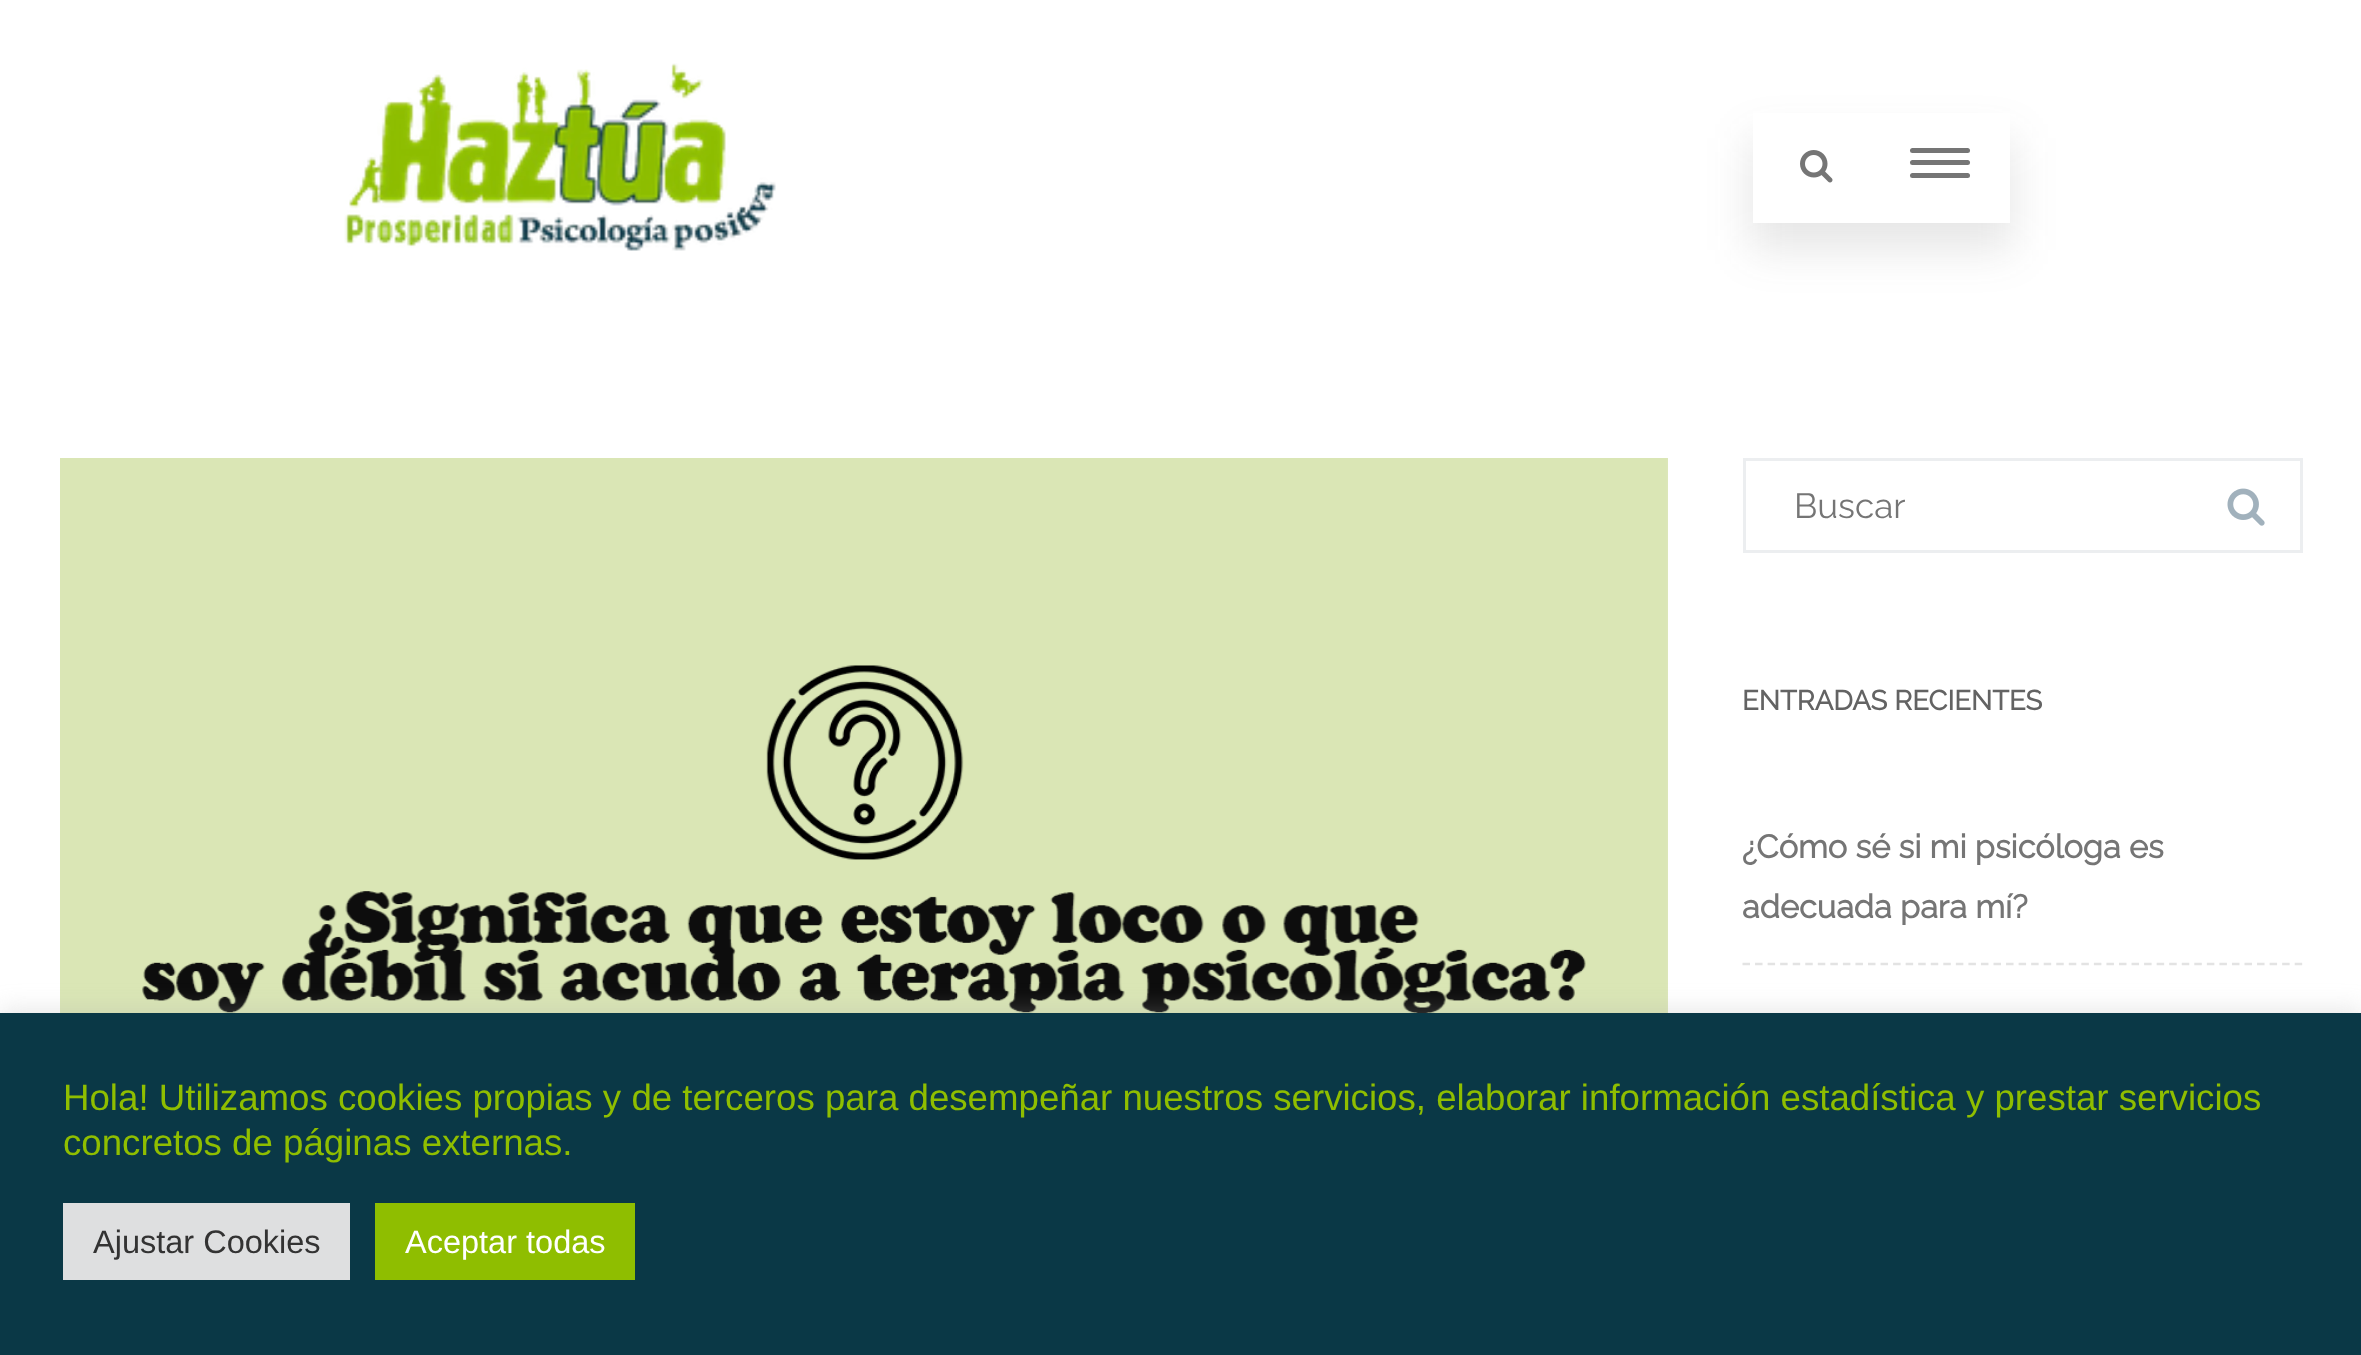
<svg xmlns="http://www.w3.org/2000/svg" width="2361" height="1355" viewBox="0 0 2361 1355">
  <defs>
    <clipPath id="clip1"><path d="M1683 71H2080V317H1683ZM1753 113H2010V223H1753Z" clip-rule="evenodd"/></clipPath>
  </defs>
  <rect width="100%" height="100%" fill="#fff"/>
  <image x="344" y="63" width="432" height="188" href="img/1.png"/>
  <g clip-path="url(#clip1)">
    <path d="M1750 138h263v112H1750z" fill="#40404021" filter="blur(22px)"/>
  </g>
  <image x="1800" y="150" width="33" height="33" href="img/2.png"/>
  <rect x="1910" y="148" width="60" height="5" rx="2.5" fill="#757575"/>
  <rect x="1910" y="160" width="60" height="5" rx="2.5" fill="#757575"/>
  <rect x="1910" y="173" width="60" height="5" rx="2.5" fill="#757575"/>
  <image x="60" y="458" width="1608" height="555" href="img/3.png"/>
  <path d="M1744.5 459.5h557v92H1744.5z" fill="none" stroke="#eceef0" stroke-width="3"/>
  <image x="2227" y="488" width="38" height="38" href="img/4.png"/>
  <path d="M1742.5 964H2302.5" fill="none" stroke="#e3e3e3" stroke-width="2.5" stroke-dasharray="7.5 5.05"/>
  <path d="M0 1010h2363v343H0z" fill="#acabab4d" filter="blur(12.5px)"/>
  <path d="M0 1013h2361v342H0z" fill="#0a3846"/>
  <path d="M63 1203h287v77H63z" fill="#dedfe0"/>
  <path d="M375 1203h260v77H375z" fill="#8fbe00"/>
  <text x="1794" y="518" font-family="Raleway" font-size="35" fill="#757575">Buscar</text>
  <text x="1742" y="710" font-family="Raleway" font-size="27.5" font-weight="bold" fill="#636363">ENTRADAS RECIENTES</text>
  <g font-family="Raleway" font-size="32.5" font-weight="bold" fill="#757575">
    <text x="1742" y="858">¿Cómo sé si mi psicóloga es</text>
    <text x="1742" y="918">adecuada para mí?</text>
  </g>
  <g font-family="Liberation Sans" font-size="36.67" fill="#8fbe00">
    <text x="63" y="1110">Hola! Utilizamos cookies propias y de terceros para desempeñar nuestros servicios, elaborar información estadística y prestar servicios</text>
    <text x="63" y="1155">concretos de páginas externas.</text>
  </g>
  <text x="93" y="1253" font-family="Liberation Sans" font-size="32.5" fill="#333">Ajustar Cookies</text>
  <text x="405" y="1253" font-family="Liberation Sans" font-size="32.5" fill="#fff">Aceptar todas</text>
</svg>
